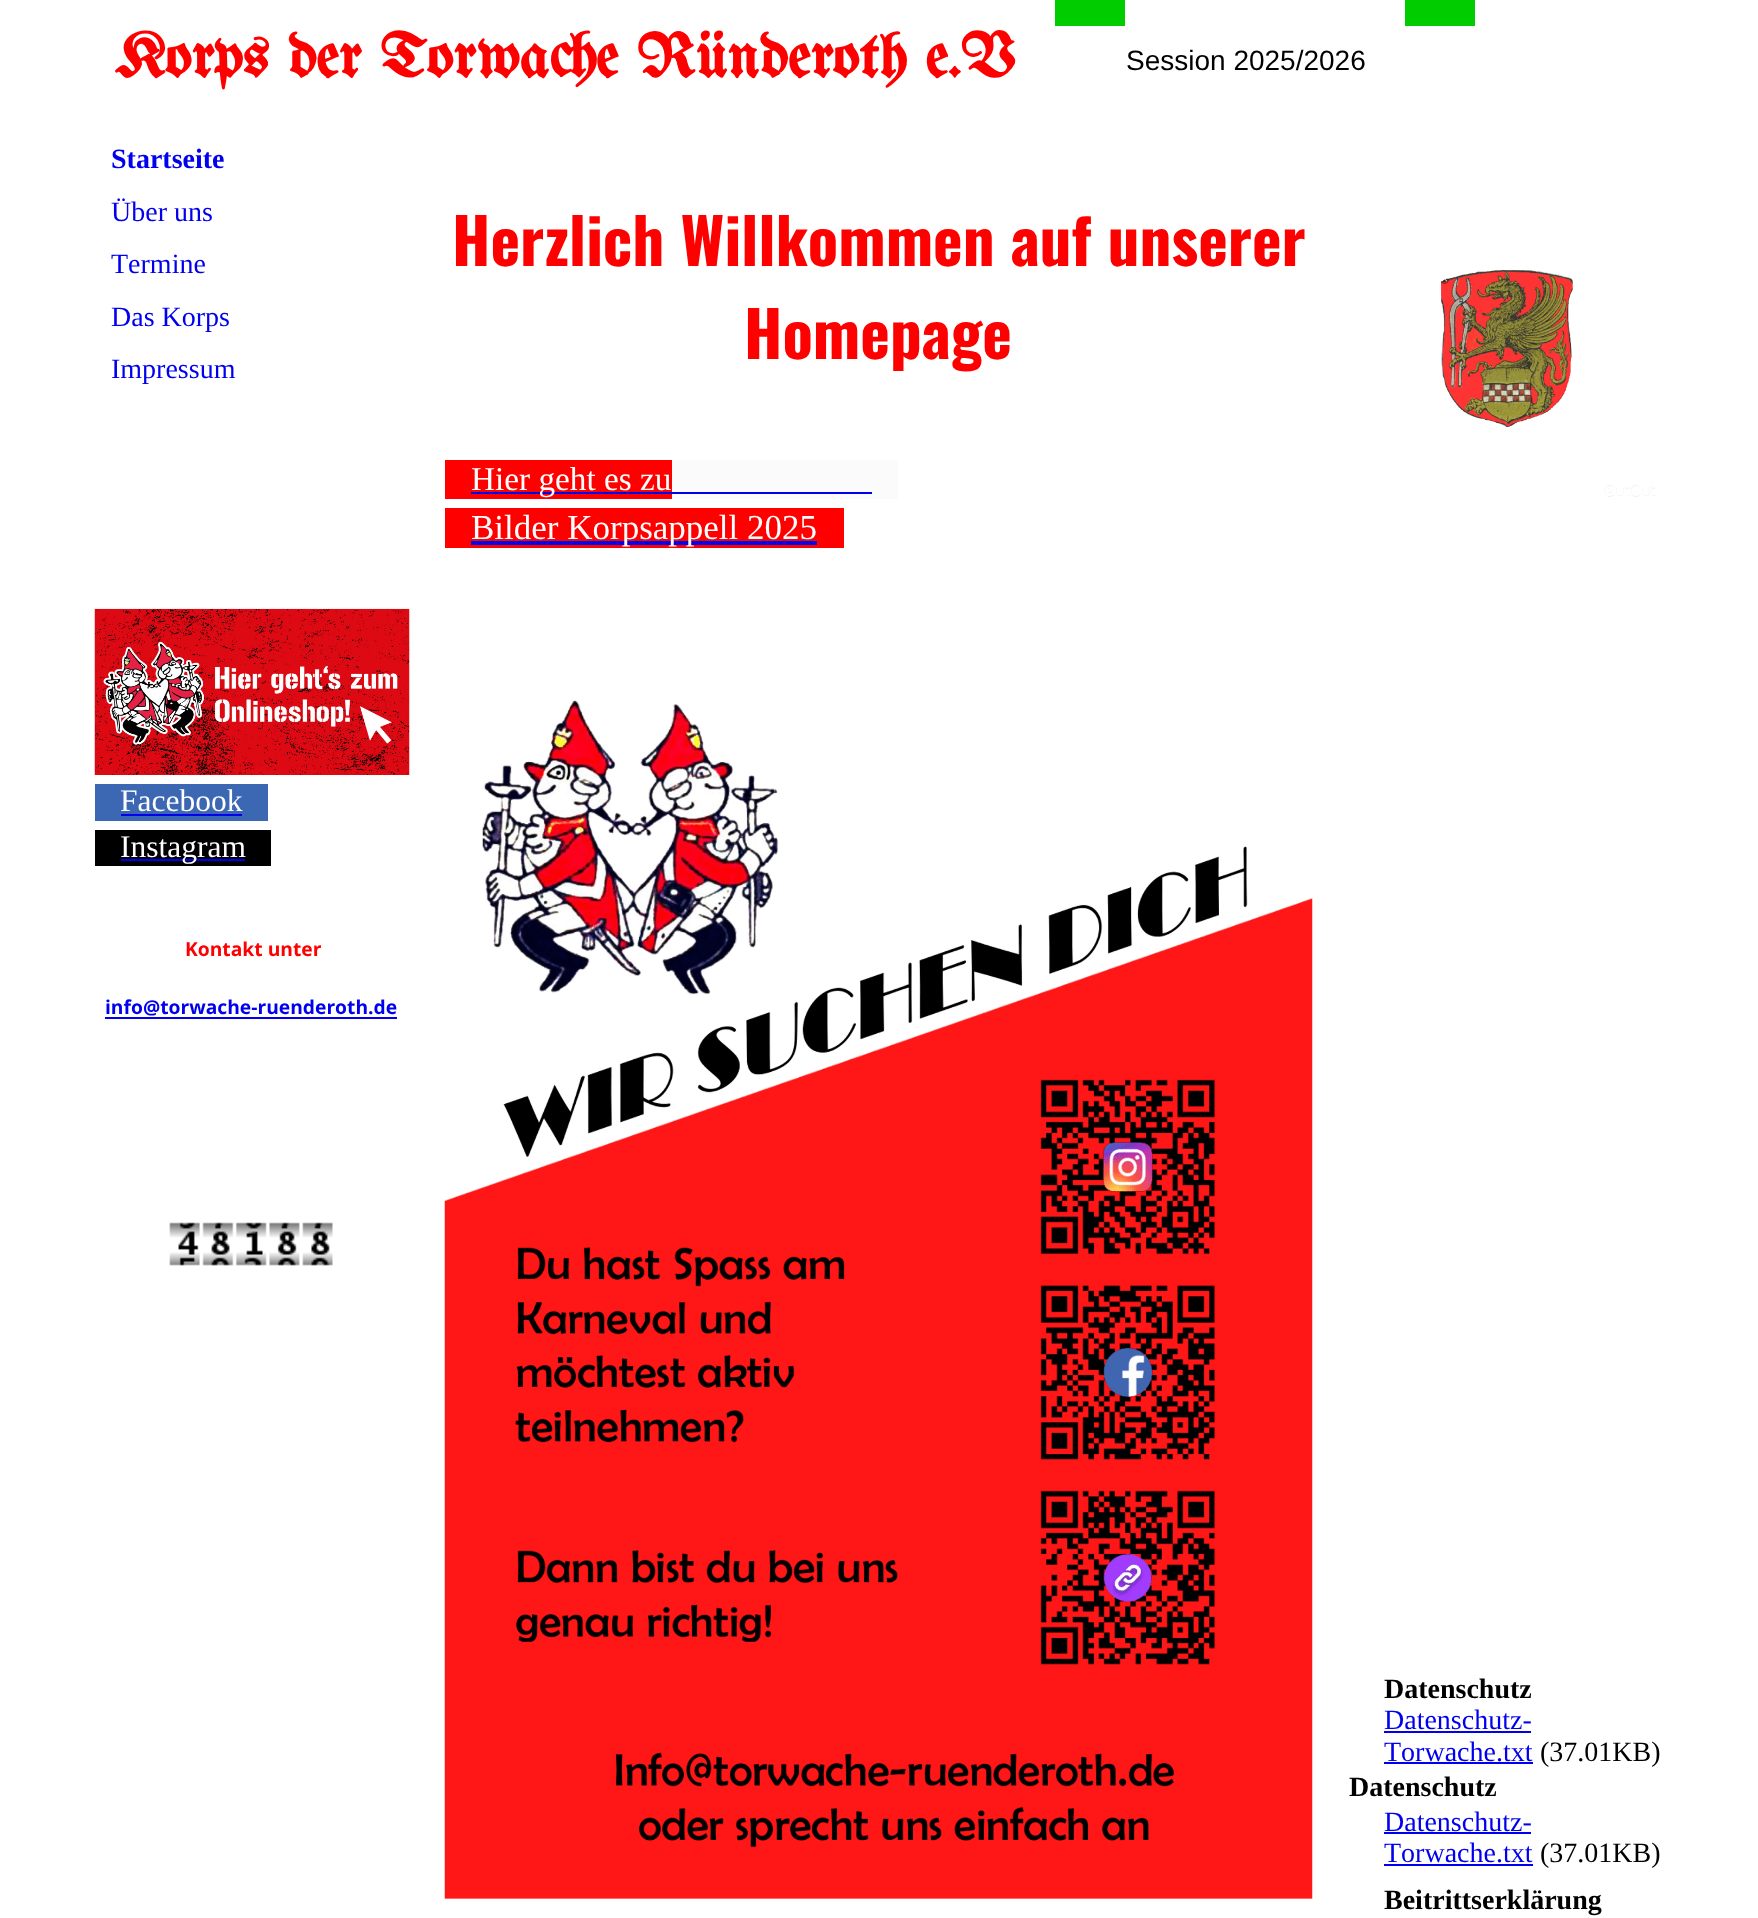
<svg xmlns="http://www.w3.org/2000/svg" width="1758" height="1918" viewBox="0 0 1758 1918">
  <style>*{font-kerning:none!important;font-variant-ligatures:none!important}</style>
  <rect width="100%" height="100%" fill="#fff"/>
  <path d="M1055 0h70v26H1055z" fill="#0c0"/>
  <path d="M1405 0h70v26H1405z" fill="#0c0"/>
  <image x="94" y="608" width="316" height="167" href="img/1.png"/>
  <path d="M95 784h173v37H95z" fill="#3c67b2"/>
  <path d="M121 814h121v2H121z" fill="#00e"/>
  <path d="M95 830h176v36H95z" fill="#000"/>
  <path d="M121 859h124v2H121z" fill="#00e"/>
  <path d="M105 1017h292v2H105z" fill="#00e"/>
  <image x="169" y="1222" width="164" height="44" href="img/2.png"/>
  <path d="M445 460h227v39H445z" fill="#f00"/>
  <path d="M672 460h226v39H672z" fill="#fbfbfb"/>
  <path d="M471 492h401v2H471z" fill="#00e"/>
  <path d="M445 508h399v40H445z" fill="#f00"/>
  <path d="M471 541h346v4H471z" fill="#00e"/>
  <image x="444" y="700" width="869" height="1199" href="img/3.png"/>
  <image x="1441" y="270" width="215" height="227" href="img/4.png"/>
  <path d="M1384 1731h147v2H1384z" fill="#00e"/>
  <path d="M1384 1762h149v2H1384z" fill="#00e"/>
  <path d="M1384 1832h147v2H1384z" fill="#00e"/>
  <path d="M1384 1864h149v2H1384z" fill="#00e"/>
  <text x="114" y="77" font-family="UnifrakturMaguntia" font-size="63" font-weight="bold" fill="#f00">Korps der Torwache Ründeroth e.V</text>
  <text x="1126" y="70" font-family="Liberation Sans" font-size="28" fill="#000">Session 2025/2026</text>
  <text x="111" y="168" font-family="Liberation Serif" font-size="28" font-weight="bold" fill="#00e">Startseite</text>
  <g font-family="Liberation Serif" font-size="28" fill="#00e">
    <text x="111" y="221">Über uns</text>
    <text x="111" y="273">Termine</text>
    <text x="111" y="326">Das Korps</text>
    <text x="111" y="378">Impressum</text>
  </g>
  <g font-family="Liberation Serif" font-size="31.5" fill="#fff">
    <text x="120" y="811">Facebook</text>
    <text x="120" y="857">Instagram</text>
  </g>
  <text x="185" y="956" font-family="Open Sans" font-size="19.25" font-weight="bold" fill="#f00">Kontakt unter</text>
  <text x="105" y="1014" font-family="Open Sans" font-size="19.25" font-weight="bold" fill="#00e">info@torwache-ruenderoth.de</text>
  <g font-family="Oswald" font-size="63" font-weight="bold" fill="#f00">
    <text x="452" y="266">Herzlich Willkommen auf unserer</text>
    <text x="744" y="359">Homepage</text>
  </g>
  <text x="471" y="490" font-family="Liberation Serif" font-size="33.25" fill="#fff">Hier geht es zu</text>
  <text x="471" y="539" font-family="Liberation Serif" font-size="35" fill="#fff">Bilder Korpsappell 2025</text>
  <text x="1384" y="1698" font-family="Liberation Serif" font-size="28" font-weight="bold" fill="#000">Datenschutz</text>
  <g font-family="Liberation Serif" font-size="28" fill="#00e">
    <text x="1384" y="1729">Datenschutz-</text>
    <text x="1384" y="1761">Torwache.txt</text>
  </g>
  <text x="1540" y="1761" font-family="Liberation Serif" font-size="28" fill="#000">(37.01KB)</text>
  <text x="1349" y="1796" font-family="Liberation Serif" font-size="28" font-weight="bold" fill="#000">Datenschutz</text>
  <g font-family="Liberation Serif" font-size="28" fill="#00e">
    <text x="1384" y="1831">Datenschutz-</text>
    <text x="1384" y="1862">Torwache.txt</text>
  </g>
  <text x="1540" y="1862" font-family="Liberation Serif" font-size="28" fill="#000">(37.01KB)</text>
  <text x="1384" y="1909" font-family="Liberation Serif" font-size="28" font-weight="bold" fill="#000">Beitrittserklärung</text>
</svg>
